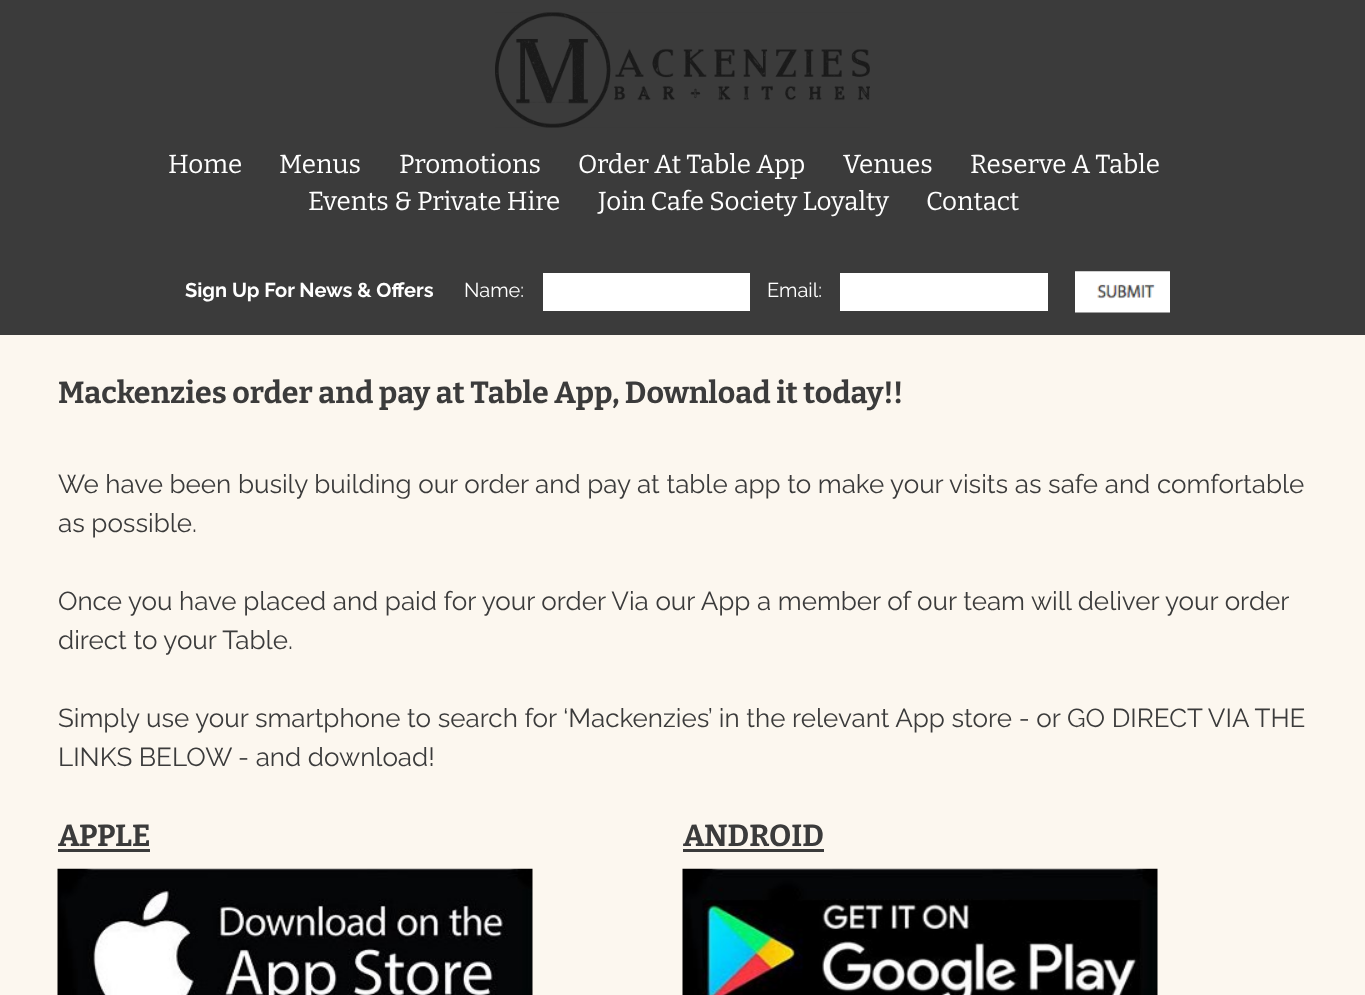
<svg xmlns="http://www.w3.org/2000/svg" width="1365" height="995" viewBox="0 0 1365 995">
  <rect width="100%" height="100%" fill="#fcf7ef"/>
  <path d="M0 0h1365v335H0z" fill="#3b3b3b"/>
  <image x="495" y="12" width="375" height="116" href="img/1.png"/>
  <path d="M543 273h207v38H543z" fill="#fff"/>
  <path d="M840 273h208v38H840z" fill="#fff"/>
  <image x="1075" y="271" width="95" height="42" href="img/2.png"/>
  <path d="M58 849h92v3H58z" fill="#3b3b3b"/>
  <image x="57" y="868" width="476" height="127" href="img/3.png"/>
  <path d="M683 849h141v3H683z" fill="#3b3b3b"/>
  <image x="682" y="868" width="476" height="127" href="img/4.png"/>
  <g font-family="Bitter" font-size="26" fill="#fff">
    <text x="168" y="173">Home</text>
    <text x="279" y="173">Menus</text>
    <text x="399" y="173">Promotions</text>
    <text x="578" y="173">Order At Table App</text>
    <text x="843" y="173">Venues</text>
    <text x="970" y="173">Reserve A Table</text>
    <text x="308" y="210">Events &amp; Private Hire</text>
    <text x="598" y="210">Join Cafe Society Loyalty</text>
    <text x="926" y="210">Contact</text>
  </g>
  <text x="185" y="297" font-family="Raleway" font-size="20" font-weight="bold" fill="#fff">Sign Up For News &amp; Offers</text>
  <g font-family="Raleway" font-size="20" fill="#fff">
    <text x="464" y="297">Name:</text>
    <text x="767" y="297">Email:</text>
  </g>
  <text x="58" y="403" font-family="Bitter" font-size="30.4" font-weight="bold" fill="#3b3b3b">Mackenzies order and pay at Table App, Download it today!!</text>
  <g font-family="Raleway" font-size="26" fill="#3b3b3b">
    <text x="58" y="493">We have been busily building our order and pay at table app to make your visits as safe and comfortable</text>
    <text x="58" y="532">as possible.</text>
    <text x="58" y="610">Once you have placed and paid for your order Via our App a member of our team will deliver your order</text>
    <text x="58" y="649">direct to your Table.</text>
    <text x="58" y="727">Simply use your smartphone to search for ‘Mackenzies’ in the relevant App store - or GO DIRECT VIA THE</text>
    <text x="58" y="766">LINKS BELOW - and download!</text>
  </g>
  <g font-family="Bitter" font-size="30.4" font-weight="bold" fill="#3b3b3b">
    <text x="58" y="846">APPLE</text>
    <text x="683" y="846">ANDROID</text>
  </g>
</svg>
